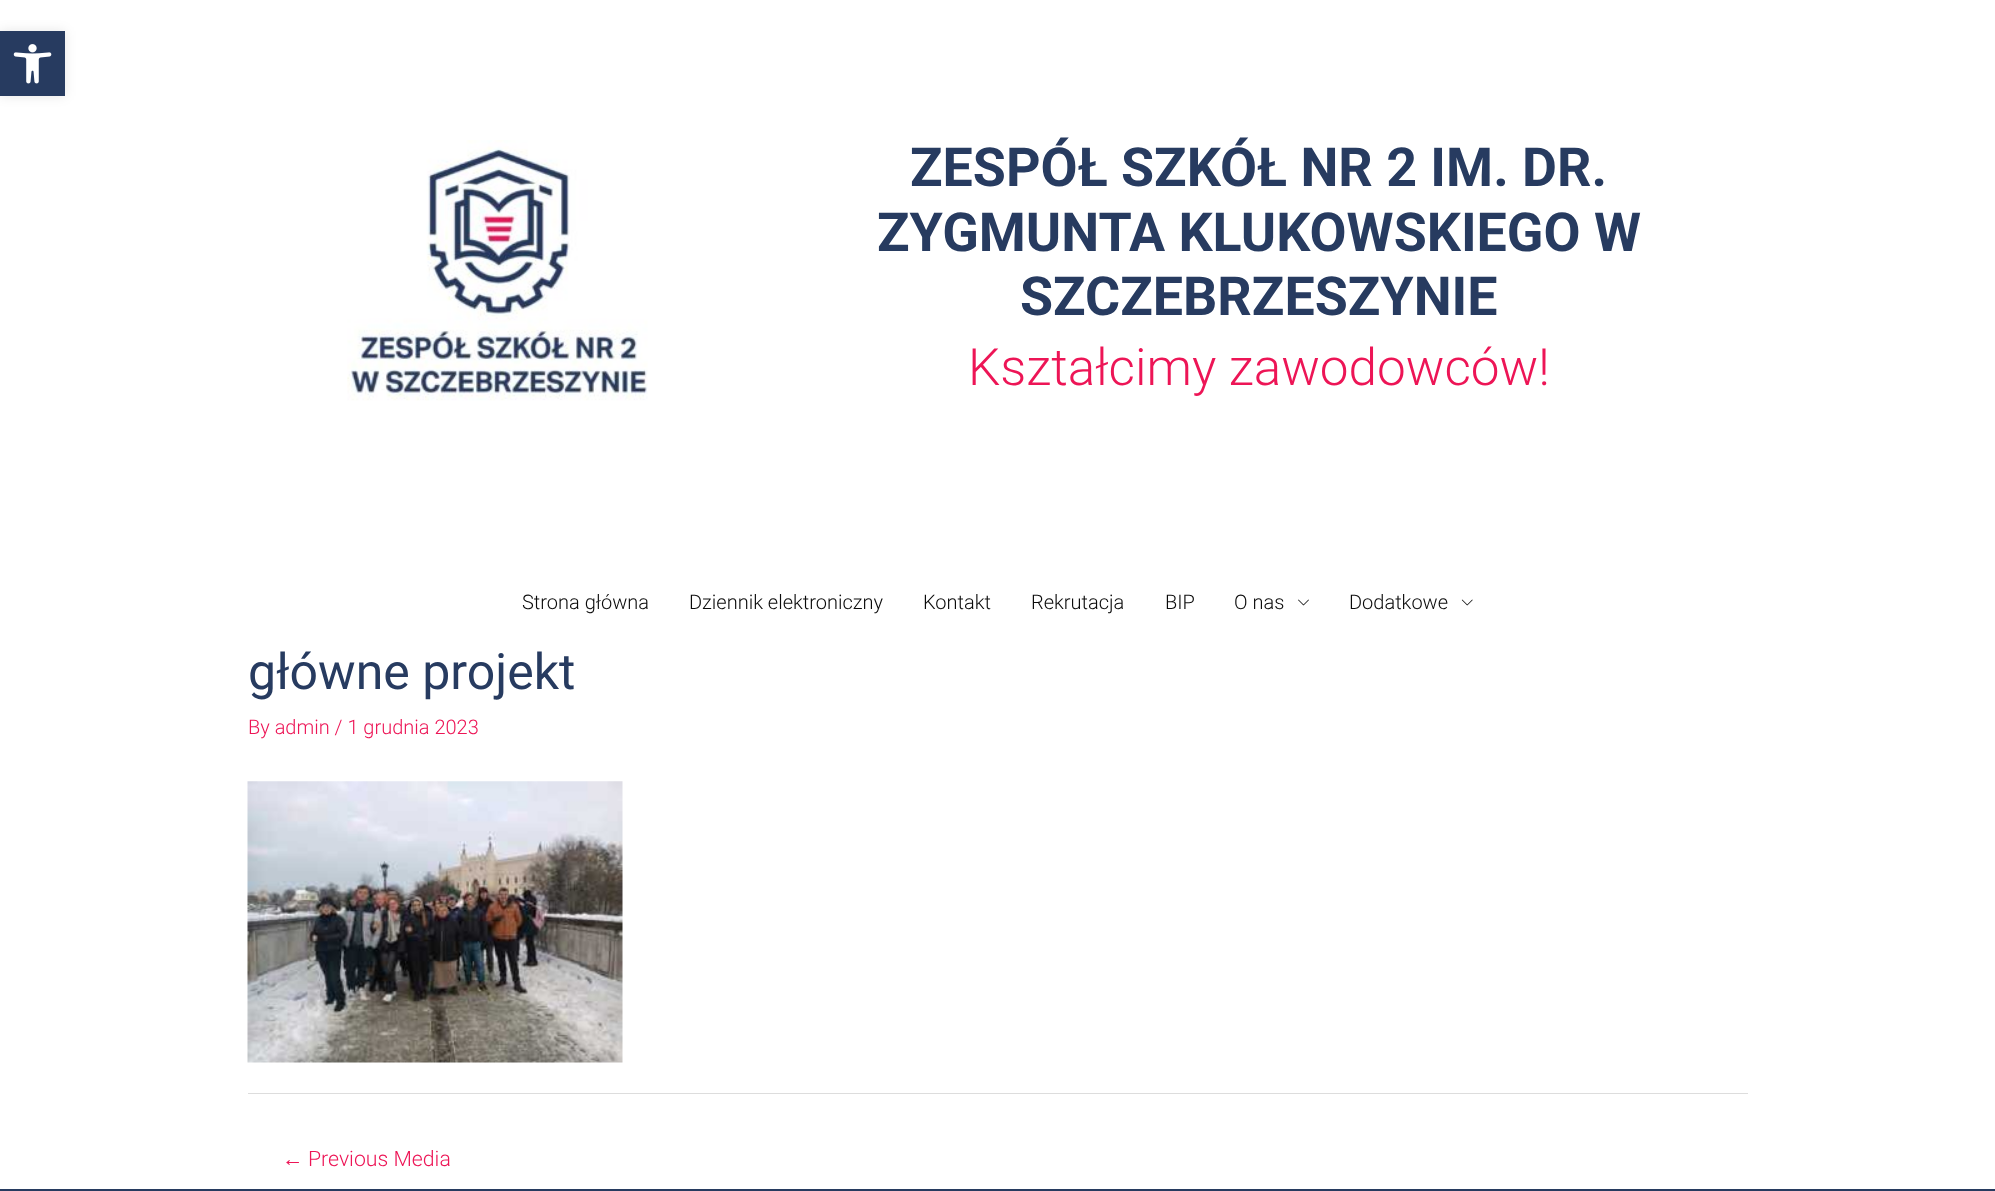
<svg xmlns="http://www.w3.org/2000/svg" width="1995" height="1191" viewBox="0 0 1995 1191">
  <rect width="100%" height="100%" fill="#fff"/>
  <path d="M0 31h65v65H0z" fill="#0000001a" filter="blur(6px)"/>
  <path d="M0 31h65v65H0z" fill="#273b60"/>
  <image x="13" y="44" width="39" height="40" href="img/1.png"/>
  <image x="347" y="140" width="301" height="261" href="img/2.png"/>
  <image x="1298" y="599" width="11" height="7" href="img/3.png"/>
  <image x="1461" y="599" width="12" height="7" href="img/4.png"/>
  <image x="247" y="781" width="376" height="282" href="img/5.png"/>
  <path d="M248 1093h1500v1H248z" fill="#ddd"/>
  <path d="M0 1189h1995v2H0z" fill="#273b60"/>
  <g font-family="Roboto" font-size="53.75" font-weight="bold" fill="#273b60">
    <text x="910" y="186">ZESPÓŁ SZKÓŁ NR 2 IM. DR.</text>
    <text x="877" y="251">ZYGMUNTA KLUKOWSKIEGO W</text>
    <text x="1020" y="315">SZCZEBRZESZYNIE</text>
  </g>
  <text x="968" y="385" font-family="Roboto" font-size="51.25" font-weight="300" fill="#ed1556">Kształcimy zawodowców!</text>
  <g font-family="Roboto" font-size="20" font-weight="300" fill="#0a0a0a">
    <text x="522" y="609">Strona główna</text>
    <text x="689" y="609">Dziennik elektroniczny</text>
    <text x="923" y="609">Kontakt</text>
    <text x="1031" y="609">Rekrutacja</text>
    <text x="1165" y="609">BIP</text>
    <text x="1234" y="609">O nas</text>
    <text x="1349" y="609">Dodatkowe</text>
  </g>
  <text x="248" y="689" font-family="Roboto" font-size="50" fill="#273b60">główne projekt</text>
  <text x="248" y="734" font-family="Roboto" font-size="20" font-weight="300" fill="#ed1556">By admin / 1 grudnia 2023</text>
  <text x="282" y="1166" font-family="Liberation Sans" font-size="21.25" fill="#ed1556">←</text>
  <text x="308" y="1166" font-family="Roboto" font-size="21.25" font-weight="300" fill="#ed1556">Previous Media</text>
</svg>
